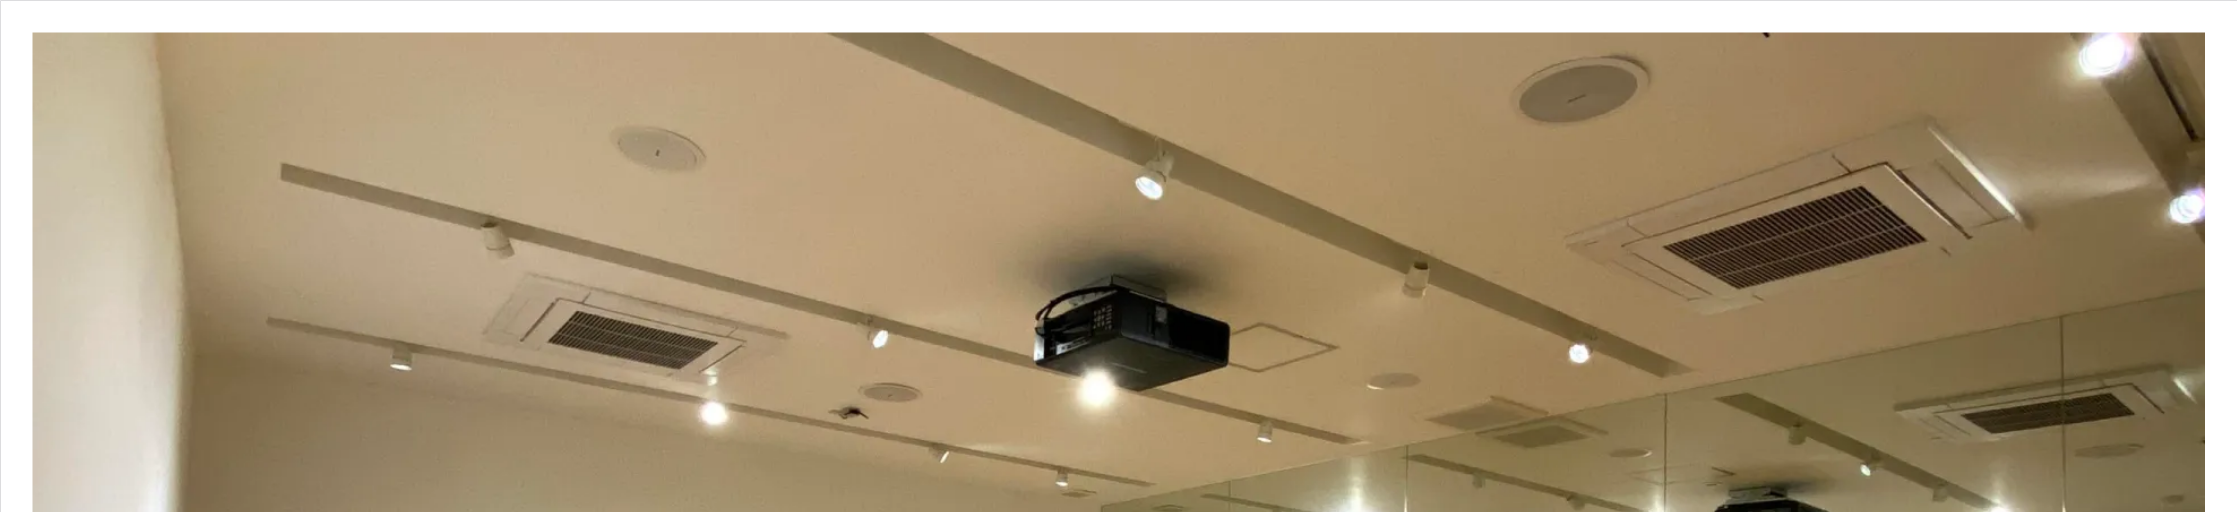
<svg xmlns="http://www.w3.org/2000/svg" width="2237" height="512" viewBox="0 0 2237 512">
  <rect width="100%" height="100%" fill="#fff"/>
  <path d="M0.5 0.5h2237v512H0.5z" fill="none" stroke="#dcdcde"/>
  <image x="32" y="32" width="2173" height="480" href="img/1.png"/>
</svg>
